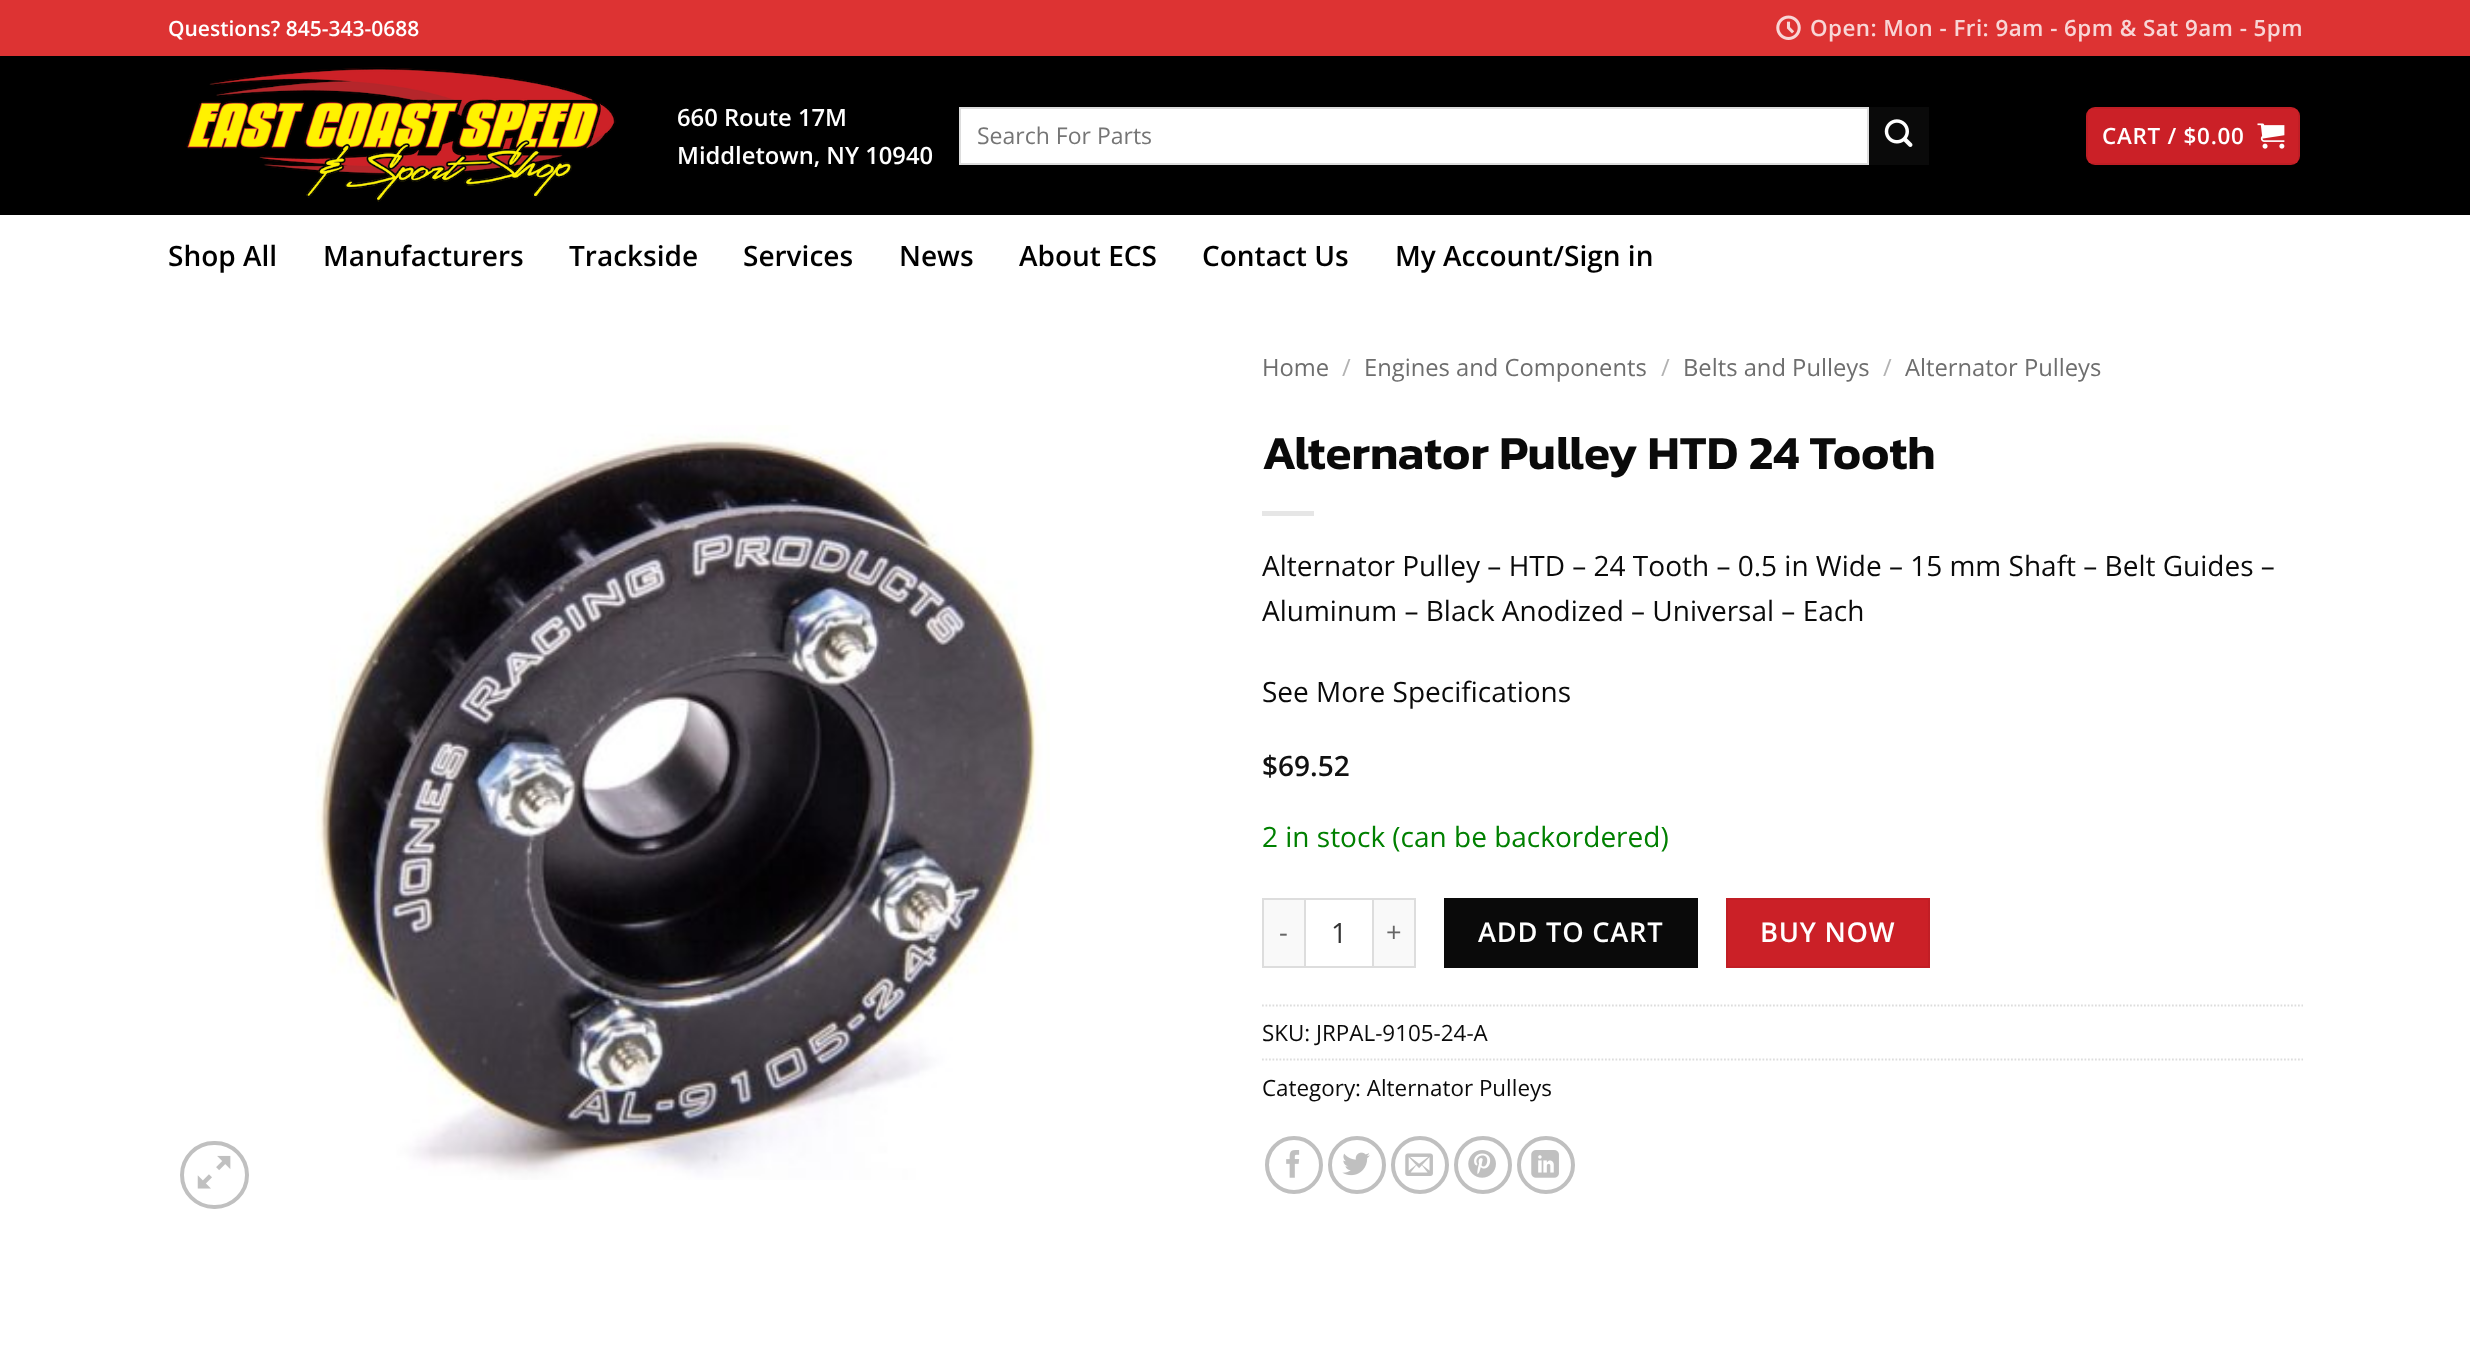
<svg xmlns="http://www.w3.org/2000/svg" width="2470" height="1356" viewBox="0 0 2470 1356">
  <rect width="100%" height="100%" fill="#fff"/>
  <path d="M0 0h2470v56H0z" fill="#d33"/>
  <image x="1776" y="15" width="25" height="25" href="img/1.png"/>
  <path d="M0 56h2470v159H0z" fill="#000"/>
  <image x="186" y="67" width="430" height="135" href="img/2.png"/>
  <path d="M960 108h908v56H960z" fill="#fff" stroke="#ddd" stroke-width="2"/>
  <path d="M1869 107h60v58H1869z" fill="#0a0a0a"/>
  <image x="1884" y="119" width="29" height="28" href="img/3.png"/>
  <rect x="2086" y="107" width="214" height="58" rx="9" fill="#cb2027"/>
  <path d="M2087 108h212v56H2087z" fill="none" stroke="#0000000d" stroke-width="2"/>
  <image x="2257" y="123" width="28" height="26" href="img/4.png"/>
  <rect x="182" y="1143" width="65" height="64" rx="32" fill="none" stroke="#c0c0c0" stroke-width="4"/>
  <image x="197" y="1155" width="34" height="34" href="img/5.png"/>
  <image x="315" y="425" width="735" height="755" href="img/6.png"/>
  <path d="M1262 511h52v5H1262z" fill="#e6e6e6"/>
  <path d="M1264 900h40v66H1264z" fill="#f9f9f9"/>
  <path d="M1262 898h42v2H1262z" fill="#ddd"/>
  <path d="M1262 966h42v2H1262z" fill="#ddd"/>
  <path d="M1262 898h2v70H1262z" fill="#ddd"/>
  <path d="M1305 899h68v68H1305z" fill="none" stroke="#ddd" stroke-width="2"/>
  <path d="M1374 900h40v66H1374z" fill="#f9f9f9"/>
  <path d="M1374 898h42v2H1374z" fill="#ddd"/>
  <path d="M1414 898h2v70H1414z" fill="#ddd"/>
  <path d="M1374 966h42v2H1374z" fill="#ddd"/>
  <path d="M1444 898h254v70H1444z" fill="#0a0a0a"/>
  <path d="M1727 899h202v68H1727z" fill="#cb2027" stroke="#c11e25" stroke-width="2"/>
  <path d="M1262 1005.5H2303" fill="none" stroke="#ddd" stroke-width="1.8" stroke-dasharray="1.75 1.75"/>
  <path d="M1262 1059.5H2303" fill="none" stroke="#ddd" stroke-width="1.8" stroke-dasharray="1.75 1.75"/>
  <circle cx="1294" cy="1165" r="27" fill="none" stroke="#c0c0c0" stroke-width="4"/>
  <image x="1286" y="1150" width="14" height="28" href="img/7.png"/>
  <circle cx="1357" cy="1165" r="27" fill="none" stroke="#c0c0c0" stroke-width="4"/>
  <image x="1342" y="1152" width="28" height="24" href="img/8.png"/>
  <circle cx="1420" cy="1165" r="27" fill="none" stroke="#c0c0c0" stroke-width="4"/>
  <image x="1405" y="1153" width="28" height="23" href="img/9.png"/>
  <circle cx="1483" cy="1165" r="27" fill="none" stroke="#c0c0c0" stroke-width="4"/>
  <image x="1468" y="1150" width="28" height="28" href="img/10.png"/>
  <circle cx="1546" cy="1165" r="27" fill="none" stroke="#c0c0c0" stroke-width="4"/>
  <image x="1531" y="1150" width="28" height="28" href="img/11.png"/>
  <text x="168" y="36" font-family="Open Sans" font-size="21" font-weight="600" fill="#fff">Questions? 845-343-0688</text>
  <text x="1810" y="36" font-family="Open Sans" font-size="22.4" font-weight="600" letter-spacing="0.45" fill="#f8d6d6">Open: Mon - Fri: 9am - 6pm &amp; Sat 9am - 5pm</text>
  <g font-family="Open Sans" font-size="23.75" font-weight="600" fill="#fff">
    <text x="677" y="126">660 Route 17M</text>
    <text x="677" y="164">Middletown, NY 10940</text>
  </g>
  <text x="977" y="144" font-family="Open Sans" font-size="23" fill="#757575">Search For Parts</text>
  <text x="2102" y="144" font-family="Open Sans" font-size="22.4" font-weight="600" letter-spacing="0.75" fill="#fff">CART / $0.00</text>
  <g font-family="Open Sans" font-size="28" font-weight="600" fill="#000">
    <text x="168" y="266">Shop All</text>
    <text x="323" y="266">Manufacturers</text>
    <text x="569" y="266">Trackside</text>
    <text x="743" y="266">Services</text>
    <text x="899" y="266">News</text>
    <text x="1019" y="266">About ECS</text>
    <text x="1202" y="266">Contact Us</text>
    <text x="1395" y="266">My Account/Sign in</text>
  </g>
  <text x="1262" y="376" font-family="Open Sans" font-size="23.75" fill="#6e6e6e">Home</text>
  <text x="1342" y="376" font-family="Open Sans" font-size="23.75" fill="#b2b2b2">/</text>
  <text x="1364" y="376" font-family="Open Sans" font-size="23.75" fill="#6e6e6e">Engines and Components</text>
  <text x="1661" y="376" font-family="Open Sans" font-size="23.75" fill="#b2b2b2">/</text>
  <text x="1683" y="376" font-family="Open Sans" font-size="23.75" fill="#6e6e6e">Belts and Pulleys</text>
  <text x="1883" y="376" font-family="Open Sans" font-size="23.75" fill="#b2b2b2">/</text>
  <text x="1905" y="376" font-family="Open Sans" font-size="23.75" fill="#6e6e6e">Alternator Pulleys</text>
  <text x="1262" y="469" font-family="Kanit" font-size="47.6" font-weight="600" fill="#0a0a0a">Alternator Pulley HTD 24 Tooth</text>
  <g font-family="Open Sans" font-size="28" fill="#0a0a0a">
    <text x="1262" y="576">Alternator Pulley – HTD – 24 Tooth – 0.5 in Wide – 15 mm Shaft – Belt Guides –</text>
    <text x="1262" y="621">Aluminum – Black Anodized – Universal – Each</text>
    <text x="1262" y="702">See More Specifications</text>
  </g>
  <text x="1262" y="776" font-family="Open Sans" font-size="28" font-weight="600" fill="#111">$69.52</text>
  <text x="1262" y="847" font-family="Open Sans" font-size="28" fill="#008000">2 in stock (can be backordered)</text>
  <text x="1279" y="942" font-family="Open Sans" font-size="27.25" letter-spacing="0.75" fill="#666">-</text>
  <text x="1331" y="943" font-family="Open Sans" font-size="28" fill="#333">1</text>
  <text x="1386" y="942" font-family="Open Sans" font-size="27.25" letter-spacing="0.75" fill="#666">+</text>
  <g font-family="Open Sans" font-size="27.25" font-weight="600" letter-spacing="0.75" fill="#fff">
    <text x="1478" y="942">ADD TO CART</text>
    <text x="1760" y="942">BUY NOW</text>
  </g>
  <g font-family="Open Sans" font-size="22.4" fill="#0a0a0a">
    <text x="1262" y="1041">SKU: JRPAL-9105-24-A</text>
    <text x="1262" y="1096">Category: Alternator Pulleys</text>
  </g>
</svg>
